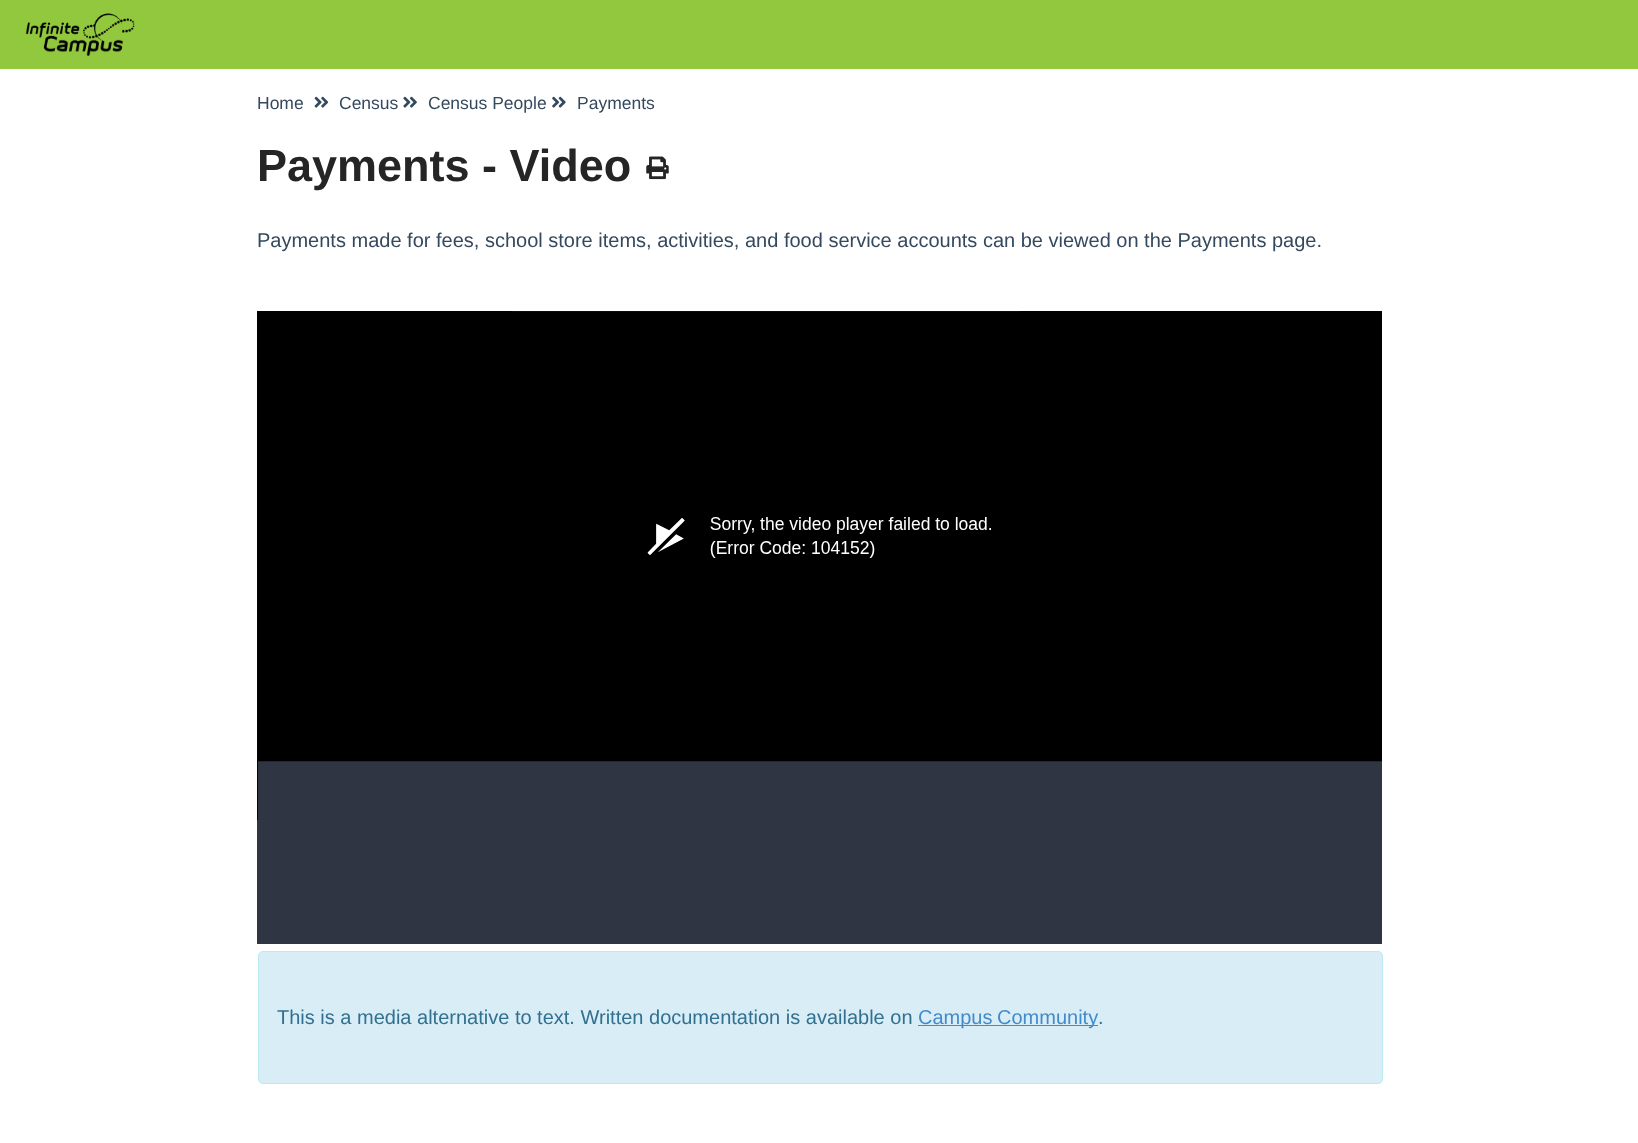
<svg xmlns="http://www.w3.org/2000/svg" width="1638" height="1143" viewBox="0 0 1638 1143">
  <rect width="100%" height="100%" fill="#fff"/>
  <path d="M0 0h1638v69H0z" fill="#92c83e"/>
  <image x="25" y="13" width="110" height="44" href="img/1.png"/>
  <image x="314" y="96" width="15" height="12" href="img/2.png"/>
  <image x="403" y="96" width="14" height="12" href="img/3.png"/>
  <image x="552" y="96" width="14" height="12" href="img/4.png"/>
  <image x="646" y="156" width="23" height="24" href="img/5.png"/>
  <image x="257" y="311" width="1125" height="633" href="img/6.png"/>
  <rect x="258.5" y="951.5" width="1124" height="132" rx="4.5" fill="#d9edf7" stroke="#bce8f1"/>
  <path d="M918 1025h180v1H918z" fill="#428bca"/>
  <g font-family="Liberation Sans" font-size="17.5" fill="#34495e">
    <text x="257" y="109">Home</text>
    <text x="339" y="109">Census</text>
    <text x="428" y="109">Census People</text>
    <text x="577" y="109">Payments</text>
  </g>
  <text x="257" y="181" font-family="Liberation Sans" font-size="45" font-weight="bold" fill="#252525">Payments - Video</text>
  <text x="257" y="247" font-family="Liberation Sans" font-size="20" fill="#34495e">Payments made for fees, school store items, activities, and food service accounts can be viewed on the Payments page.</text>
  <text x="277" y="1024" font-family="Liberation Sans" font-size="20" fill="#31708f">This is a media alternative to text. Written documentation is available on</text>
  <text x="918" y="1024" word-spacing="-1" font-family="Liberation Sans" font-size="20" fill="#428bca">Campus Community</text>
  <text x="1098" y="1024" font-family="Liberation Sans" font-size="20" fill="#31708f">.</text>
</svg>
